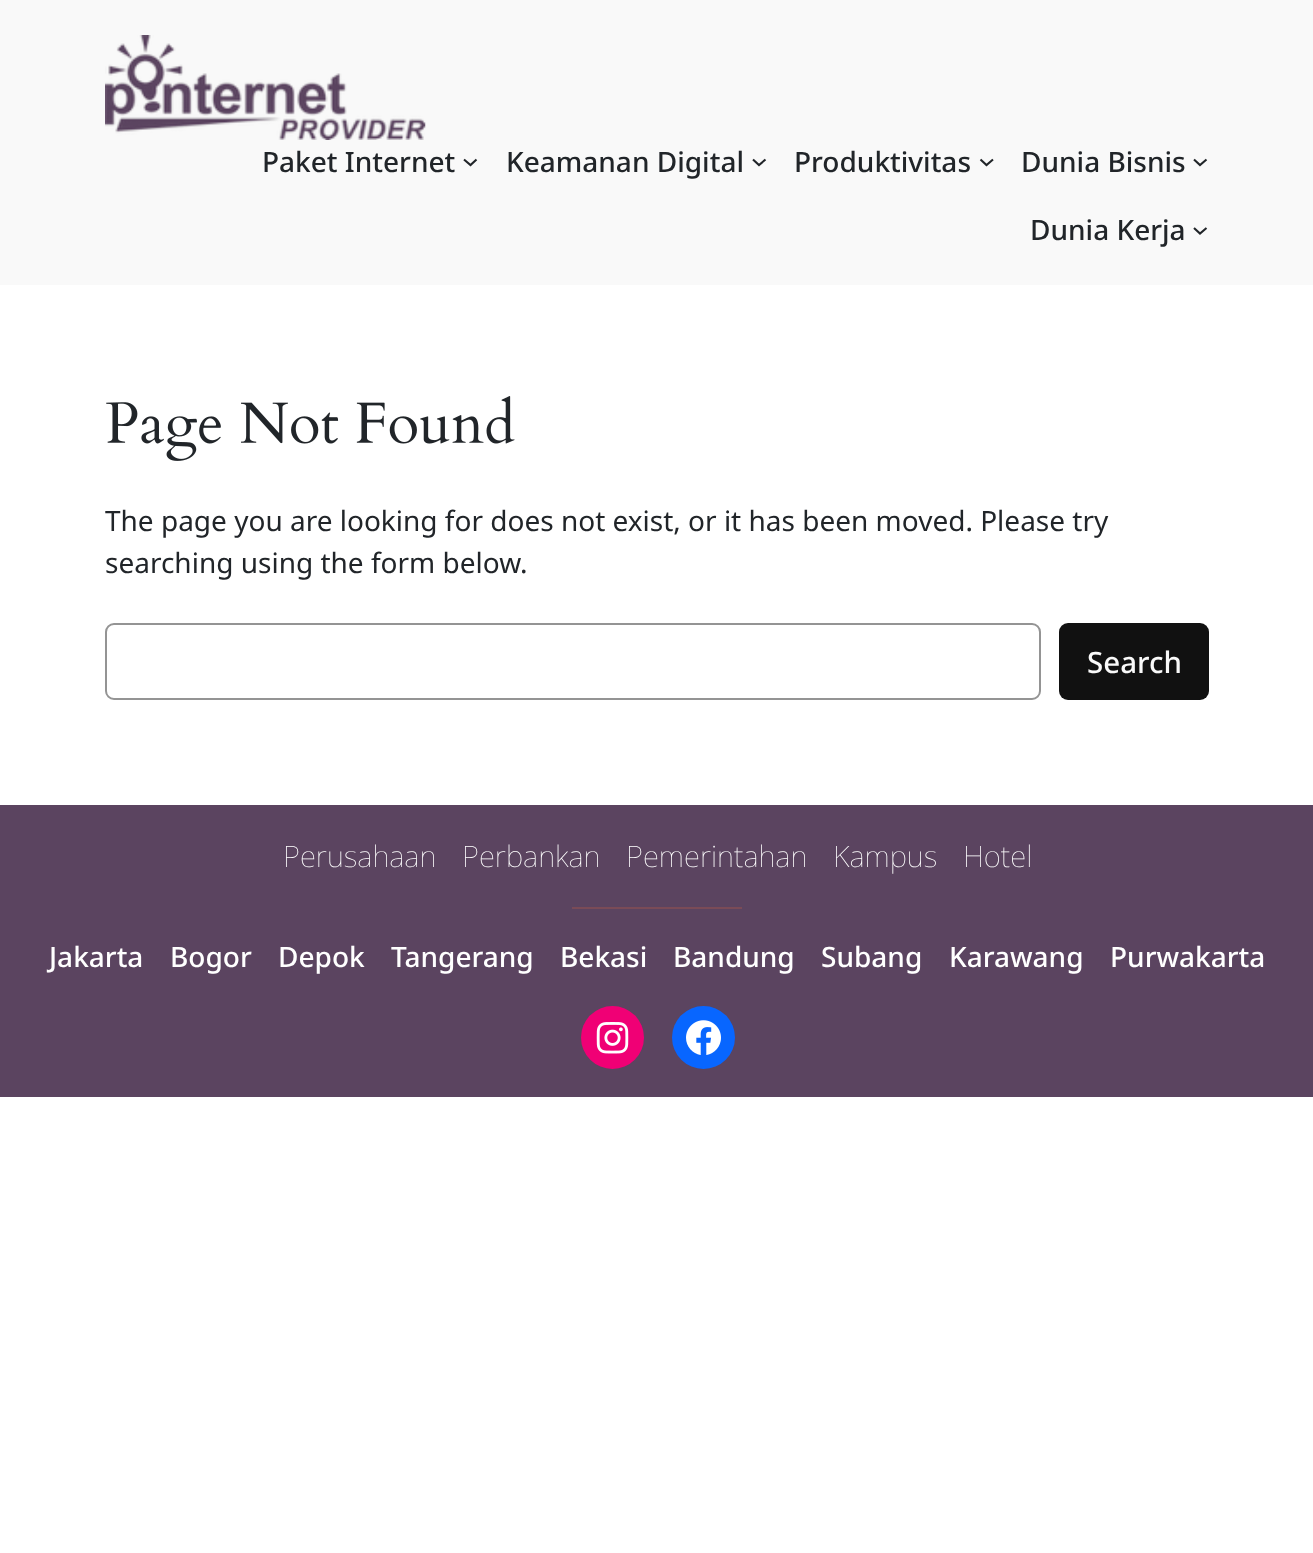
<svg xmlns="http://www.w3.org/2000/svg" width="1313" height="1553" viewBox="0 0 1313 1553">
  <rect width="100%" height="100%" fill="#fff"/>
  <path d="M0 0h1313v285H0z" fill="#f9f9f9"/>
  <image x="105" y="35" width="321" height="105" href="img/1.png"/>
  <path d="M464 159.5L470.5 165L476.5 159.5" fill="none" stroke="#212529" stroke-width="2.1"/>
  <path d="M753 159.5L759 165L765.5 159.5" fill="none" stroke="#212529" stroke-width="2.1"/>
  <path d="M980.5 159.5L986.5 165L993 159.5" fill="none" stroke="#212529" stroke-width="2.1"/>
  <path d="M1194 159.5L1200 165L1206.5 159.5" fill="none" stroke="#212529" stroke-width="2.1"/>
  <path d="M1194 228L1200 233.5L1206.5 228" fill="none" stroke="#212529" stroke-width="2.1"/>
  <image x="106" y="396" width="409" height="65" href="img/2.png"/>
  <rect x="106" y="624" width="934" height="75" rx="8" fill="none" stroke="#949494" stroke-width="2"/>
  <rect x="1059" y="623" width="150" height="77" rx="9" fill="#111"/>
  <path d="M0 805h1313v292H0z" fill="#5b4460"/>
  <path d="M572 907h170v2H572z" fill="#7a4b57"/>
  <circle cx="612.5" cy="1037.5" r="31.5" fill="#f00075"/>
  <image x="596" y="1022" width="33" height="32" href="img/3.png"/>
  <circle cx="703.5" cy="1037.5" r="31.5" fill="#0866ff"/>
  <image x="686" y="1020" width="35" height="35" href="img/4.png"/>
  <g font-family="Noto Sans" font-size="28" font-weight="500" fill="#212529">
    <text x="262" y="172">Paket Internet</text>
    <text x="506" y="172">Keamanan Digital</text>
    <text x="794" y="172">Produktivitas</text>
    <text x="1021" y="172">Dunia Bisnis</text>
    <text x="1030" y="240">Dunia Kerja</text>
  </g>
  <g font-family="Noto Sans" font-size="28" fill="#212529">
    <text x="105" y="531">The page you are looking for does not exist, or it has been moved. Please try</text>
    <text x="105" y="573">searching using the form below.</text>
  </g>
  <text x="1087" y="673" font-family="Noto Sans" font-size="29.5" font-weight="500" fill="#f9f9f9">Search</text>
  <g font-family="Noto Sans" font-size="29.5" font-weight="100" fill="#fff">
    <text x="283" y="867">Perusahaan</text>
    <text x="462" y="867">Perbankan</text>
    <text x="626" y="867">Pemerintahan</text>
    <text x="833" y="867">Kampus</text>
    <text x="963" y="867">Hotel</text>
  </g>
  <g font-family="Noto Sans" font-size="28" font-weight="500" fill="#fff">
    <text x="49" y="967">Jakarta</text>
    <text x="170" y="967">Bogor</text>
    <text x="278" y="967">Depok</text>
    <text x="391" y="967">Tangerang</text>
    <text x="560" y="967">Bekasi</text>
    <text x="673" y="967">Bandung</text>
    <text x="821" y="967">Subang</text>
    <text x="949" y="967">Karawang</text>
    <text x="1110" y="967">Purwakarta</text>
  </g>
</svg>
